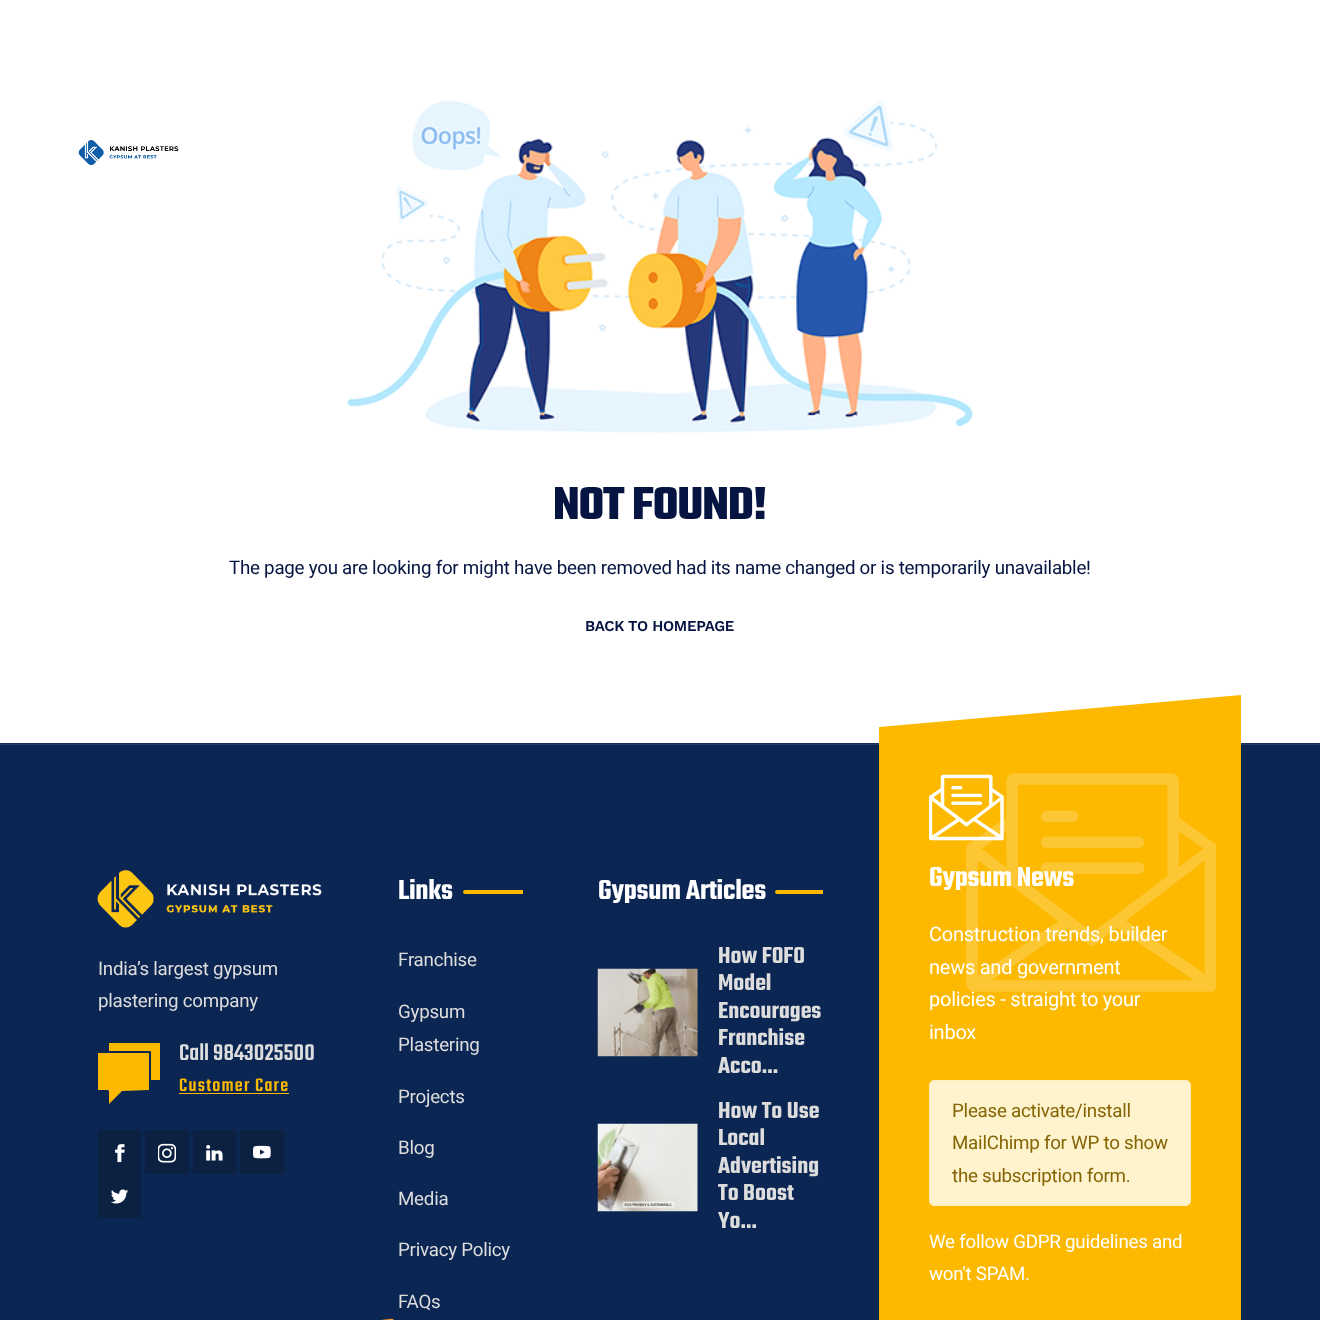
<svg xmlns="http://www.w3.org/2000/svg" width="1320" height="1320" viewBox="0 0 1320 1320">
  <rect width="100%" height="100%" fill="#fff"/>
  <image x="78" y="140" width="101" height="25" href="img/1.png"/>
  <image x="347" y="100" width="626" height="333" href="img/2.png"/>
  <path d="M0 745h1320v575H0z" fill="#0b2653"/>
  <path d="M0 743h1320v1H0z" fill="#17315c"/>
  <path d="M0 744h1320v1H0z" fill="#233c64"/>
  <image x="97" y="870" width="225" height="58" href="img/3.png"/>
  <path d="M160 1080V1043H109V1051H150C151 1051 151 1052 151 1052V1080Z" fill="#fdb900"/>
  <path d="M122 1091L149 1090V1053H98V1090H108C108 1090 109 1091 109 1091V1104Z" fill="#fdb900"/>
  <path d="M179 1093h110v1H179z" fill="#fdb900"/>
  <path d="M98 1130h43v88H98z" fill="#0c2042"/>
  <image x="115" y="1144" width="10" height="19" href="img/4.png"/>
  <path d="M145 1130h44v44H145z" fill="#0c2042"/>
  <image x="158" y="1143" width="18" height="20" href="img/5.png"/>
  <path d="M193 1130h43v44H193z" fill="#0c2042"/>
  <image x="206" y="1145" width="17" height="16" href="img/6.png"/>
  <path d="M240 1130h44v44H240z" fill="#0c2042"/>
  <image x="253" y="1145" width="18" height="14" href="img/7.png"/>
  <image x="111" y="1189" width="18" height="15" href="img/8.png"/>
  <path d="M465 890H523V894H465C464 894 463 893 463 892C463 891 464 890 465 890Z" fill="#fdb900"/>
  <path d="M777 890H823V894H777C776 894 775 893 775 892C775 891 776 890 777 890Z" fill="#fdb900"/>
  <image x="597" y="968" width="101" height="89" href="img/9.png"/>
  <image x="597" y="1123" width="101" height="89" href="img/10.png"/>
  <path d="M879 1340H1241V695L879 727Z" fill="#fdb900"/>
  <image x="929" y="774" width="75" height="67" href="img/12.png"/>
  <rect x="929.5" y="1080.5" width="261" height="125" rx="4.5" fill="#fff3cd" stroke="#ffeeba"/>
  <image x="381" y="1318" width="13" height="2" href="img/13.png"/>
  <text x="553" y="519" font-family="Teko" font-size="50" font-weight="bold" letter-spacing="-1.25" fill="#051441">NOT FOUND!</text>
  <text x="229" y="574" font-family="Roboto" font-size="18.75" letter-spacing="-0.25" fill="#051441">The page you are looking for might have been removed had its name changed or is temporarily unavailable!</text>
  <text x="585" y="631" font-family="Work Sans" font-size="15" font-weight="600" letter-spacing="-0.25" fill="#051441">BACK TO HOMEPAGE</text>
  <g font-family="Roboto" font-size="18.75" letter-spacing="-0.25" fill="#ddd">
    <text x="98" y="975">India’s largest gypsum</text>
    <text x="98" y="1007">plastering company</text>
  </g>
  <text x="179" y="1060" font-family="Teko" font-size="25" font-weight="500" fill="#ddd">Call 9843025500</text>
  <text x="179" y="1091" font-family="Teko" font-size="20" font-weight="500" letter-spacing="1.25" fill="#fdb900">Customer Care</text>
  <text x="398" y="899" font-family="Teko" font-size="30" font-weight="600" letter-spacing="-0.25" fill="#fff">Links</text>
  <g font-family="Roboto" font-size="18.75" letter-spacing="-0.25" fill="#ddd">
    <text x="398" y="966">Franchise</text>
    <text x="398" y="1018">Gypsum</text>
    <text x="398" y="1051">Plastering</text>
    <text x="398" y="1103">Projects</text>
    <text x="398" y="1154">Blog</text>
    <text x="398" y="1205">Media</text>
    <text x="398" y="1256">Privacy Policy</text>
    <text x="398" y="1308">FAQs</text>
  </g>
  <text x="598" y="899" font-family="Teko" font-size="30" font-weight="600" letter-spacing="-0.25" fill="#fff">Gypsum Articles</text>
  <g font-family="Teko" font-size="25" font-weight="600" fill="#ddd">
    <text x="718" y="963">How FOFO</text>
    <text x="718" y="990">Model</text>
    <text x="718" y="1018">Encourages</text>
    <text x="718" y="1045">Franchise</text>
    <text x="718" y="1073">Acco...</text>
    <text x="718" y="1118">How To Use</text>
    <text x="718" y="1145">Local</text>
    <text x="718" y="1173">Advertising</text>
    <text x="718" y="1200">To Boost</text>
    <text x="718" y="1228">Yo...</text>
  </g>
  <text x="929" y="886" font-family="Teko" font-size="30" font-weight="600" letter-spacing="-0.25" fill="#fff">Gypsum News</text>
  <g font-family="Roboto" font-size="20" letter-spacing="-0.25" fill="#fff">
    <text x="929" y="941">Construction trends, builder</text>
    <text x="929" y="974">news and government</text>
    <text x="929" y="1006">policies - straight to your</text>
  </g>
  <image x="966" y="773" width="250" height="219" href="img/11.png"/>
  <text x="929" y="1039" font-family="Roboto" font-size="20" letter-spacing="-0.25" fill="#fff">inbox</text>
  <g font-family="Roboto" font-size="18.75" letter-spacing="-0.25" fill="#856404">
    <text x="952" y="1117">Please activate/install</text>
    <text x="952" y="1149">MailChimp for WP to show</text>
    <text x="952" y="1182">the subscription form.</text>
  </g>
  <g font-family="Roboto" font-size="18.75" letter-spacing="-0.25" fill="#fff">
    <text x="929" y="1248">We follow GDPR guidelines and</text>
    <text x="929" y="1280">won't SPAM.</text>
  </g>
</svg>
